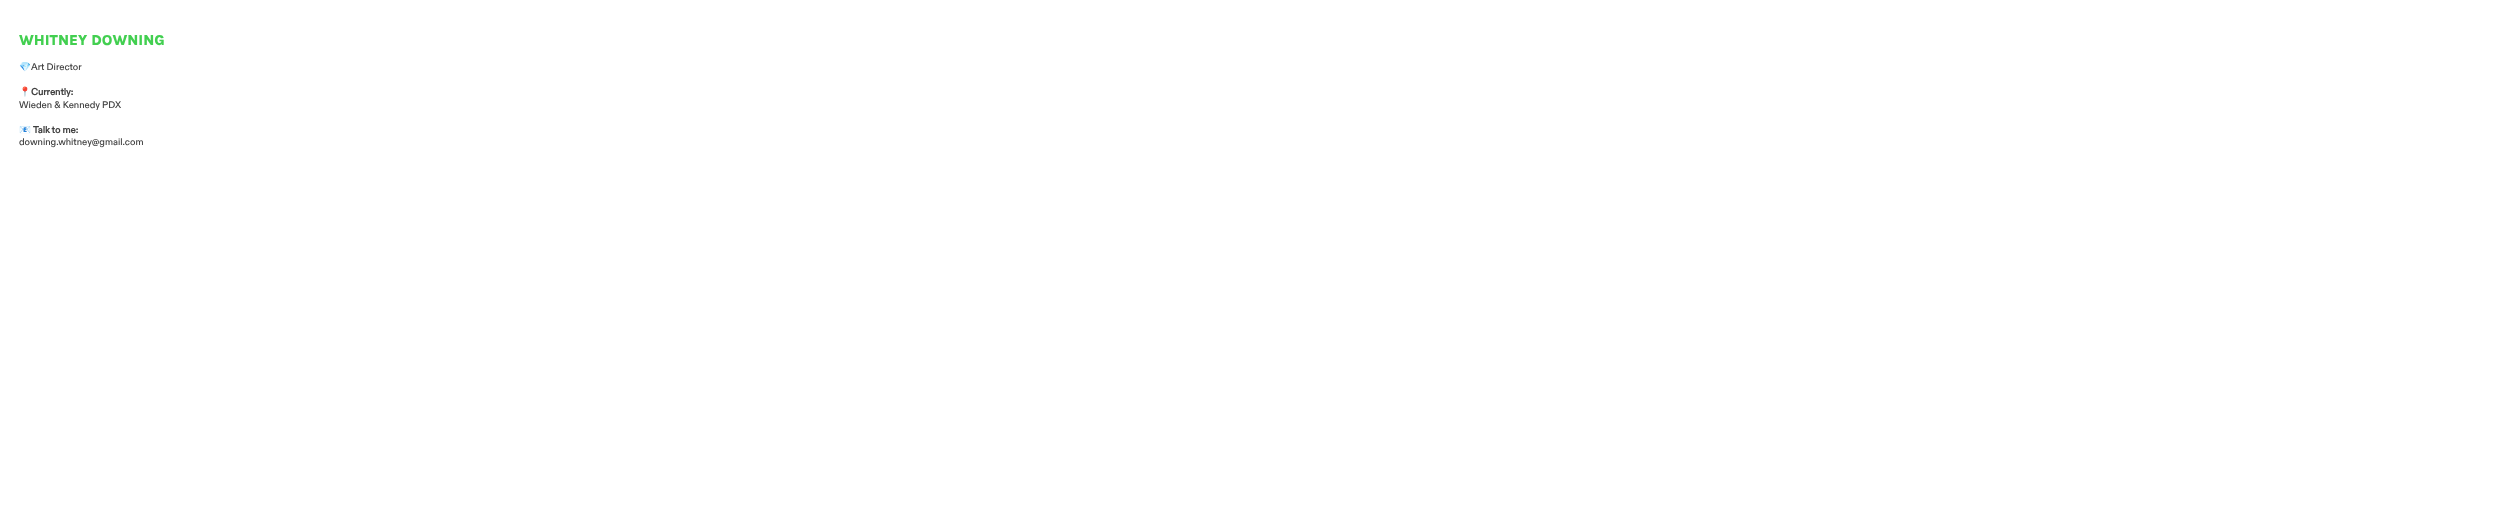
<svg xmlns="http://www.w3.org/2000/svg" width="2510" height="514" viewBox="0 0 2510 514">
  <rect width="100%" height="100%" fill="#fff"/>
  <text x="19" y="45" font-family="Karla" font-size="14.75" font-weight="800" fill="#42cf50">WHITNEY DOWNING</text>
  <text x="19" y="70" font-family="Noto Color Emoji" font-size="9.6" fill="#404040">💎️</text>
  <text x="31" y="70" font-family="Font" font-size="9.6" font-weight="500" fill="#404040">Art Director</text>
  <text x="19" y="95" font-family="Noto Color Emoji" font-size="9.6" fill="#404040">📍️</text>
  <text x="31" y="95" font-family="Font" font-size="9.6" font-weight="bold" fill="#404040">Currently:</text>
  <text x="19" y="108" font-family="Font" font-size="9.6" font-weight="500" fill="#404040">Wieden &amp; Kennedy PDX</text>
  <text x="19" y="133" font-family="Noto Color Emoji" font-size="9.6" fill="#404040">📧</text>
  <text x="33" y="133" font-family="Font" font-size="9.6" font-weight="bold" fill="#404040">Talk to me:</text>
  <text x="19" y="145" font-family="Font" font-size="9.6" font-weight="500" fill="#404040">downing.whitney@gmail.com</text>
</svg>
